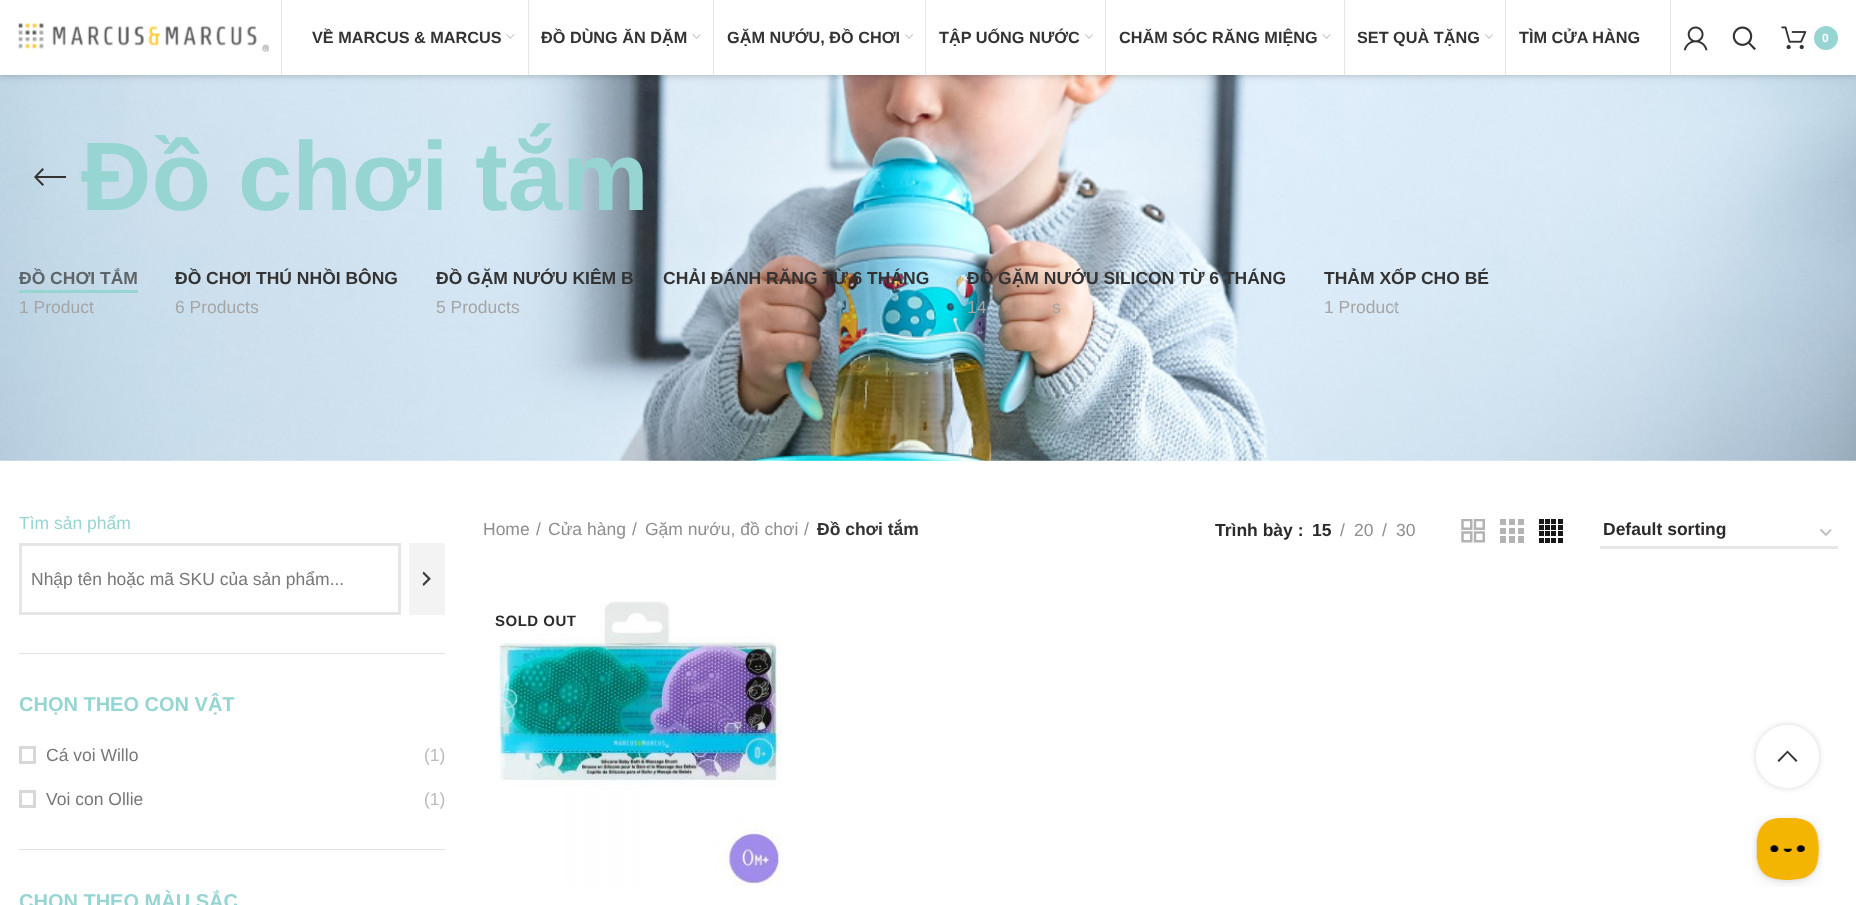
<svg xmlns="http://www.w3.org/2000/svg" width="1856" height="905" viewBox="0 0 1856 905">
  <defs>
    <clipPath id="clip1"><path d="M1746 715H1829V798H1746ZM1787.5 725C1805 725 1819 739 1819 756.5C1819 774 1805 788 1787.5 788C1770 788 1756 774 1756 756.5C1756 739 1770 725 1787.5 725Z" clip-rule="evenodd"/></clipPath>
  </defs>
  <rect width="100%" height="100%" fill="#fff"/>
  <image x="0" y="75" width="1856" height="386" href="img/8.png"/>
  <path d="M0 1h1856v75H0z" fill="#0000001a" filter="blur(2px)"/>
  <path d="M0 1h1856v75H0z" fill="#0000001a" filter="blur(5px)"/>
  <path d="M0 0h1856v75H0z" fill="#fff"/>
  <image x="18" y="23" width="251" height="29" href="img/1.png"/>
  <path d="M281 0h1v75H281z" fill="#e6e6e6"/>
  <image x="506" y="34" width="9" height="5" href="img/2.png"/>
  <path d="M528 0h1v75H528z" fill="#e6e6e6"/>
  <image x="692" y="34" width="9" height="5" href="img/3.png"/>
  <path d="M713 0h1v75H713z" fill="#e6e6e6"/>
  <image x="905" y="34" width="8" height="5" href="img/4.png"/>
  <path d="M925 0h1v75H925z" fill="#e6e6e6"/>
  <image x="1085" y="34" width="8" height="5" href="img/4.png"/>
  <path d="M1105 0h1v75H1105z" fill="#e6e6e6"/>
  <image x="1322" y="34" width="9" height="5" href="img/3.png"/>
  <path d="M1344 0h1v75H1344z" fill="#e6e6e6"/>
  <image x="1485" y="34" width="8" height="5" href="img/4.png"/>
  <path d="M1505 0h1v75H1505z" fill="#e6e6e6"/>
  <path d="M1670 0h1v75H1670z" fill="#e6e6e6"/>
  <image x="1732" y="26" width="24" height="25" href="img/5.png"/>
  <image x="1781" y="26" width="26" height="24" href="img/6.png"/>
  <circle cx="1826" cy="38" r="12" fill="#96d5d2"/>
  <image x="1683" y="26" width="25" height="25" href="img/7.png"/>
  <path d="M66 176V178H37.5L44 184.5L42.5 186L34 177L42.5 168L44 169.5L37.5 176Z" fill="#333"/>
  <path d="M19 290h119v3H19z" fill="#96d5d2"/>
  <path d="M19 653h426v1H19z" fill="#e4e4e4"/>
  <path d="M20.5 544.5h379v69H20.5z" fill="none" stroke="#e6e6e6" stroke-width="3"/>
  <path d="M409 543h36v72H409z" fill="#f3f3f3"/>
  <image x="422" y="571" width="9" height="15" href="img/9.png"/>
  <path d="M19 849h426v1H19z" fill="#e4e4e4"/>
  <path d="M20.5 747.5h14v15H20.5z" fill="none" stroke="#d8d8d8" stroke-width="3"/>
  <path d="M20.5 791.5h14v15H20.5z" fill="none" stroke="#d8d8d8" stroke-width="3"/>
  <image x="1461" y="519" width="24" height="24" href="img/10.png"/>
  <image x="1500" y="519" width="24" height="24" href="img/11.png"/>
  <image x="1539" y="519" width="24" height="24" href="img/12.png"/>
  <path d="M1820.5 529.5L1826 535L1831 529.5" fill="none" stroke="#bbb" stroke-width="1.8"/>
  <path d="M1600 546h238v3H1600z" fill="#e6e6e6"/>
  <image x="498" y="601" width="284" height="285" href="img/13.png"/>
  <path d="M499 636h84v2H499z" fill="#ffffffe6"/>
  <g clip-path="url(#clip1)">
    <rect x="1756" y="725" width="63" height="63" rx="31.5" fill="#0000002b" filter="blur(3px)"/>
  </g>
  <circle cx="1787.5" cy="756.5" r="31.5" fill="#ffffffe6"/>
  <path d="M1787.5 750.5L1797.5 760.5L1796 762L1787.5 753L1779 762L1777.5 760.5Z" fill="#333"/>
  <image x="1752" y="815" width="71" height="72" href="img/14.png"/>
  <g font-family="Liberation Sans" font-size="16.25" font-weight="bold" fill="#333">
    <text x="312" y="43">VỀ MARCUS &amp; MARCUS</text>
    <text x="541" y="43">ĐỒ DÙNG ĂN DẶM</text>
    <text x="727" y="43">GẶM NƯỚU, ĐỒ CHƠI</text>
    <text x="939" y="43">TẬP UỐNG NƯỚC</text>
    <text x="1119" y="43">CHĂM SÓC RĂNG MIỆNG</text>
    <text x="1357" y="43">SET QUÀ TẶNG</text>
    <text x="1519" y="43">TÌM CỬA HÀNG</text>
  </g>
  <text x="1822" y="42" font-family="Liberation Sans" font-size="12" font-weight="bold" fill="#fff">0</text>
  <text x="81" y="210" font-family="Liberation Sans" font-size="97.5" font-weight="bold" fill="#96d5d2">Đồ chơi tắm</text>
  <text x="19" y="284" font-family="Liberation Sans" font-size="17.5" font-weight="bold" fill="#5e6569">ĐỒ CHƠI TẮM</text>
  <text x="19" y="313" font-family="Liberation Sans" font-size="17.5" fill="#a5a5a5">1 Product</text>
  <text x="175" y="284" font-family="Liberation Sans" font-size="17.5" font-weight="bold" fill="#333">ĐỒ CHƠI THÚ NHỒI BÔNG</text>
  <text x="175" y="313" font-family="Liberation Sans" font-size="17.5" fill="#a5a5a5">6 Products</text>
  <g font-family="Liberation Sans" font-size="17.5" font-weight="bold" fill="#333">
    <text x="436" y="284">ĐỒ GẶM NƯỚU KIÊM B</text>
    <text x="663" y="284">CHẢI ĐÁNH RĂNG TỪ 6 THÁNG</text>
  </g>
  <text x="436" y="313" font-family="Liberation Sans" font-size="17.5" fill="#a5a5a5">5 Products</text>
  <text x="967" y="284" font-family="Liberation Sans" font-size="17.5" font-weight="bold" fill="#333">ĐỒ GẶM NƯỚU SILICON TỪ 6 THÁNG</text>
  <g font-family="Liberation Sans" font-size="17.5" fill="#a5a5a5">
    <text x="967" y="313">14</text>
    <text x="1052" y="313">s</text>
  </g>
  <text x="1324" y="284" font-family="Liberation Sans" font-size="17.5" font-weight="bold" fill="#333">THẢM XỐP CHO BÉ</text>
  <text x="1324" y="313" font-family="Liberation Sans" font-size="17.5" fill="#a5a5a5">1 Product</text>
  <text x="1391" y="317" font-family="Liberation Sans" font-size="20" fill="#c4ced6">*</text>
  <text x="19" y="529" font-family="Liberation Sans" font-size="17.5" fill="#96d5d2">Tìm sản phẩm</text>
  <text x="31" y="585" font-family="Liberation Sans" font-size="17.5" fill="#777">Nhập tên hoặc mã SKU của sản phẩm...</text>
  <text x="19" y="711" font-family="Liberation Sans" font-size="20" font-weight="bold" fill="#96d5d2">CHỌN THEO CON VẬT</text>
  <text x="46" y="761" font-family="Liberation Sans" font-size="17.5" fill="#777">Cá voi Willo</text>
  <text x="424" y="761" font-family="Liberation Sans" font-size="17.5" fill="#bbb">(1)</text>
  <text x="46" y="805" font-family="Liberation Sans" font-size="17.5" fill="#777">Voi con Ollie</text>
  <text x="424" y="805" font-family="Liberation Sans" font-size="17.5" fill="#bbb">(1)</text>
  <text x="19" y="908" font-family="Liberation Sans" font-size="20" font-weight="bold" fill="#96d5d2">CHON THEO MÀU SẮC</text>
  <g font-family="Liberation Sans" font-size="17.5" fill="#8e8e8e">
    <text x="483" y="535">Home</text>
    <text x="536" y="535">/</text>
    <text x="548" y="535">Cửa hàng</text>
    <text x="632" y="535">/</text>
    <text x="645" y="535">Gặm nướu, đồ chơi</text>
    <text x="804" y="535">/</text>
  </g>
  <text x="817" y="535" font-family="Liberation Sans" font-size="17.5" font-weight="bold" fill="#333">Đồ chơi tắm</text>
  <g font-family="Liberation Sans" font-size="17.5" font-weight="bold" fill="#2d2a2a">
    <text x="1215" y="536">Trình bày :</text>
    <text x="1312" y="536">15</text>
  </g>
  <g font-family="Liberation Sans" font-size="17.5" fill="#8e8e8e">
    <text x="1340" y="536">/</text>
    <text x="1354" y="536">20</text>
    <text x="1382" y="536">/</text>
    <text x="1396" y="536">30</text>
  </g>
  <text x="1603" y="535" font-family="Liberation Sans" font-size="17.5" font-weight="bold" fill="#2d2a2a">Default sorting</text>
  <text x="495" y="626" font-family="Liberation Sans" font-size="15" font-weight="bold" letter-spacing="0.5" fill="#2d2a2a">SOLD OUT</text>
</svg>
